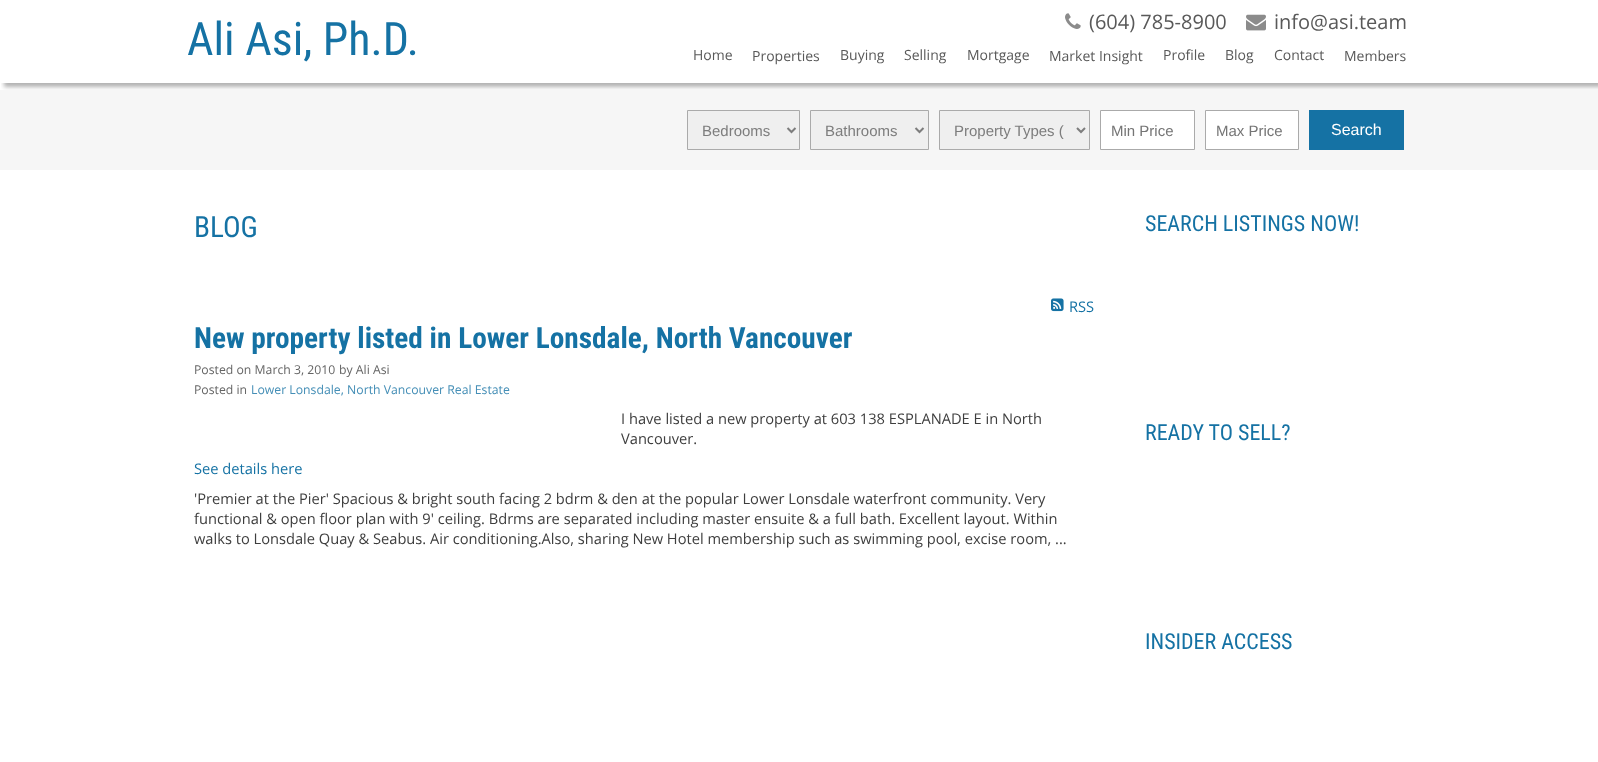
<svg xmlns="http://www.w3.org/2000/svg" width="1598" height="762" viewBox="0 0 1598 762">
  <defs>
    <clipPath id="clip1"><path d="M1 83h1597v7H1z"/></clipPath>
  </defs>
  <rect width="100%" height="100%" fill="#fff"/>
  <path d="M0 90h1598v80H0z" fill="#f6f6f6"/>
  <g clip-path="url(#clip1)">
    <path d="M4 4h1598v83H4z" fill="#0000004d" filter="blur(2px)"/>
  </g>
  <image x="1065" y="13" width="16" height="16" href="img/1.png"/>
  <image x="1246" y="14" width="20" height="17" href="img/2.png"/>
  <path d="M687.5 110.5h112v39H687.5z" fill="#efefef" stroke="#aaa"/>
  <path d="M787.5 128L791.5 132L795.5 128" fill="none" stroke="#7d7d7d" stroke-width="2"/>
  <path d="M810.5 110.5h118v39H810.5z" fill="#efefef" stroke="#aaa"/>
  <path d="M915.5 128L919.5 132L923.5 128" fill="none" stroke="#7d7d7d" stroke-width="2"/>
  <path d="M939.5 110.5h150v39H939.5z" fill="#efefef" stroke="#aaa"/>
  <path d="M1077 128L1081 132L1085 128" fill="none" stroke="#7d7d7d" stroke-width="2"/>
  <path d="M1100.5 110.5h94v39H1100.5z" fill="#fff" stroke="#aaa"/>
  <path d="M1205.5 110.5h93v39H1205.5z" fill="#fff" stroke="#aaa"/>
  <path d="M1309 110h95v40H1309z" fill="#1572a4"/>
  <image x="1051" y="298" width="13" height="14" href="img/3.png"/>
  <text x="187" y="55" font-family="Roboto Condensed" font-size="46" fill="#1572a4">Ali Asi, Ph.D.</text>
  <g font-family="Open Sans" font-size="20" fill="#595959">
    <text x="1089" y="29">(604) 785-8900</text>
    <text x="1274" y="29">info@asi.team</text>
  </g>
  <g font-family="Open Sans" font-size="14" fill="#595959">
    <text x="693" y="60">Home</text>
    <text x="752" y="61">Properties</text>
    <text x="840" y="60">Buying</text>
    <text x="904" y="60">Selling</text>
    <text x="967" y="60">Mortgage</text>
    <text x="1049" y="61">Market Insight</text>
    <text x="1163" y="60">Profile</text>
    <text x="1225" y="60">Blog</text>
    <text x="1274" y="60">Contact</text>
    <text x="1344" y="61">Members</text>
  </g>
  <g font-family="Liberation Sans" font-size="15" fill="#7d7d7d">
    <text x="702" y="136">Bedrooms</text>
    <text x="825" y="136">Bathrooms</text>
    <text x="954" y="136">Property Types (</text>
  </g>
  <g font-family="Liberation Sans" font-size="15" fill="#757575">
    <text x="1111" y="136">Min Price</text>
    <text x="1216" y="136">Max Price</text>
  </g>
  <text x="1331" y="135" font-family="Liberation Sans" font-size="16" fill="#fff">Search</text>
  <text x="194" y="237" font-family="Roboto Condensed" font-size="29.3" fill="#1572a4">BLOG</text>
  <text x="1069" y="312" font-family="Open Sans" font-size="14.67" fill="#1572a4">RSS</text>
  <text x="194" y="348" font-family="Roboto Condensed" font-size="29.3" font-weight="bold" fill="#1572a4">New property listed in Lower Lonsdale, North Vancouver</text>
  <g font-family="Open Sans" font-size="12.25" fill="#656565">
    <text x="194" y="374">Posted on March 3, 2010</text>
    <text x="339" y="374">by Ali Asi</text>
    <text x="194" y="394">Posted in</text>
  </g>
  <text x="251" y="394" font-family="Open Sans" font-size="12.25" fill="#448eb6">Lower Lonsdale, North Vancouver Real Estate</text>
  <g font-family="Open Sans" font-size="14.67" fill="#3e3e3e">
    <text x="621" y="424">I have listed a new property at 603 138 ESPLANADE E in North</text>
    <text x="621" y="444">Vancouver.</text>
  </g>
  <text x="194" y="474" font-family="Open Sans" font-size="14.67" fill="#1572a4">See details here</text>
  <g font-family="Open Sans" font-size="14.67" fill="#3e3e3e">
    <text x="194" y="504">'Premier at the Pier' Spacious &amp; bright south facing 2 bdrm &amp; den at the popular Lower Lonsdale waterfront community. Very</text>
    <text x="194" y="524">functional &amp; open floor plan with 9' ceiling. Bdrms are separated including master ensuite &amp; a full bath. Excellent layout. Within</text>
    <text x="194" y="544">walks to Lonsdale Quay &amp; Seabus. Air conditioning.Also, sharing New Hotel membership such as swimming pool, excise room, ...</text>
  </g>
  <g font-family="Roboto Condensed" font-size="22" fill="#1572a4">
    <text x="1145" y="231">SEARCH LISTINGS NOW!</text>
    <text x="1145" y="440">READY TO SELL?</text>
    <text x="1145" y="649">INSIDER ACCESS</text>
  </g>
</svg>
